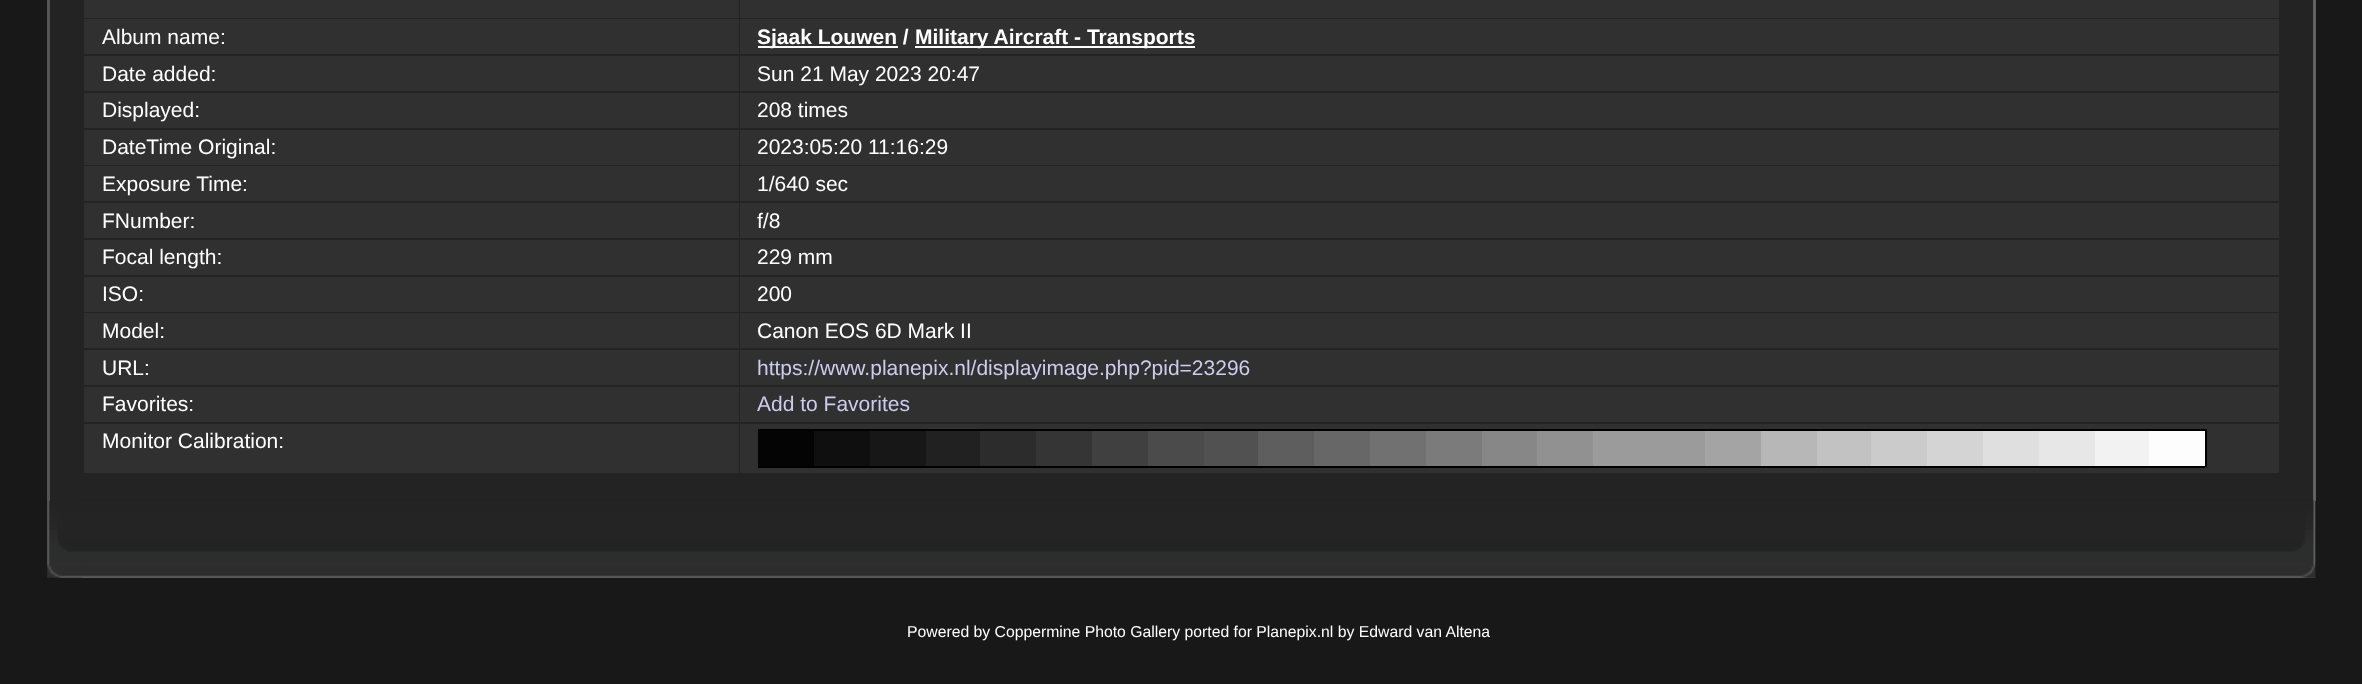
<svg xmlns="http://www.w3.org/2000/svg" width="2362" height="684" viewBox="0 0 2362 684">
  <rect width="100%" height="100%" fill="#181818"/>
  <path d="M50 0h2263v501H50z" fill="#232323"/>
  <path d="M47 0h3v501H47z" fill="#545454"/>
  <path d="M2313 0h3v501H2313z" fill="#616161"/>
  <path d="M84 0h655v18H84z" fill="#303030"/>
  <path d="M740 0h1539v18H740z" fill="#303030"/>
  <path d="M84 19h655v35H84z" fill="#303030"/>
  <path d="M740 19h1539v35H740z" fill="#303030"/>
  <path d="M758 46h140v2H758z" fill="#fff"/>
  <path d="M915 46h280v2H915z" fill="#fff"/>
  <path d="M84 56h655v35H84z" fill="#303030"/>
  <path d="M740 56h1539v35H740z" fill="#303030"/>
  <path d="M84 93h655v35H84z" fill="#303030"/>
  <path d="M740 93h1539v35H740z" fill="#303030"/>
  <path d="M84 130h655v35H84z" fill="#303030"/>
  <path d="M740 130h1539v35H740z" fill="#303030"/>
  <path d="M84 166h655v35H84z" fill="#303030"/>
  <path d="M740 166h1539v35H740z" fill="#303030"/>
  <path d="M84 203h655v35H84z" fill="#303030"/>
  <path d="M740 203h1539v35H740z" fill="#303030"/>
  <path d="M84 240h655v35H84z" fill="#303030"/>
  <path d="M740 240h1539v35H740z" fill="#303030"/>
  <path d="M84 277h655v35H84z" fill="#303030"/>
  <path d="M740 277h1539v35H740z" fill="#303030"/>
  <path d="M84 313h655v35H84z" fill="#303030"/>
  <path d="M740 313h1539v35H740z" fill="#303030"/>
  <path d="M84 350h655v35H84z" fill="#303030"/>
  <path d="M740 350h1539v35H740z" fill="#303030"/>
  <path d="M84 387h655v35H84z" fill="#303030"/>
  <path d="M740 387h1539v35H740z" fill="#303030"/>
  <path d="M84 424h655v49H84z" fill="#303030"/>
  <path d="M740 424h1539v49H740z" fill="#303030"/>
  <path d="M758 431h56v35H758z" fill="#040404"/>
  <path d="M758 429h1447v2H758z" fill="#000"/>
  <path d="M758 466h1447v2H758z" fill="#000"/>
  <path d="M2205 429h2v38H2205z" fill="#000"/>
  <path d="M814 431h56v35H814z" fill="#0f0f0f"/>
  <path d="M870 431h56v35H870z" fill="#171717"/>
  <path d="M926 431h54v35H926z" fill="#212121"/>
  <path d="M980 431h56v35H980z" fill="#2c2c2c"/>
  <path d="M1036 431h56v35H1036z" fill="#353535"/>
  <path d="M1092 431h56v35H1092z" fill="#404040"/>
  <path d="M1148 431h56v35H1148z" fill="#4b4b4b"/>
  <path d="M1204 431h54v35H1204z" fill="#515151"/>
  <path d="M1258 431h56v35H1258z" fill="#5e5e5e"/>
  <path d="M1314 431h56v35H1314z" fill="#676767"/>
  <path d="M1370 431h56v35H1370z" fill="#717171"/>
  <path d="M1426 431h56v35H1426z" fill="#7b7b7b"/>
  <path d="M1482 431h55v35H1482z" fill="#878787"/>
  <path d="M1537 431h56v35H1537z" fill="#919191"/>
  <path d="M1593 431h112v35H1593z" fill="#9b9b9b"/>
  <path d="M1705 431h56v35H1705z" fill="#a4a4a4"/>
  <path d="M1761 431h56v35H1761z" fill="#b7b7b7"/>
  <path d="M1817 431h54v35H1817z" fill="#c2c2c2"/>
  <path d="M1871 431h56v35H1871z" fill="#cbcbcb"/>
  <path d="M1927 431h56v35H1927z" fill="#d4d4d4"/>
  <path d="M1983 431h56v35H1983z" fill="#dfdfdf"/>
  <path d="M2039 431h56v35H2039z" fill="#e7e7e7"/>
  <path d="M2095 431h54v35H2095z" fill="#f2f2f2"/>
  <path d="M2149 431h56v35H2149z" fill="#fdfdfd"/>
  <image x="47" y="500" width="2269" height="78" href="img/1.png"/>
  <image x="82" y="500" width="2234" height="78" href="img/2.png"/>
  <text x="102" y="44" font-family="Liberation Sans" font-size="21" fill="#fff">Album name:</text>
  <g font-family="Liberation Sans" font-size="21" font-weight="bold" fill="#fff">
    <text x="757" y="44">Sjaak Louwen /</text>
    <text x="915" y="44">Military Aircraft - Transports</text>
  </g>
  <g font-family="Liberation Sans" font-size="21" fill="#fff">
    <text x="102" y="81">Date added:</text>
    <text x="757" y="81">Sun 21 May 2023 20:47</text>
    <text x="102" y="117">Displayed:</text>
    <text x="757" y="117">208 times</text>
    <text x="102" y="154">DateTime Original:</text>
    <text x="757" y="154">2023:05:20 11:16:29</text>
    <text x="102" y="191">Exposure Time:</text>
    <text x="757" y="191">1/640 sec</text>
    <text x="102" y="228">FNumber:</text>
    <text x="757" y="228">f/8</text>
    <text x="102" y="264">Focal length:</text>
    <text x="757" y="264">229 mm</text>
    <text x="102" y="301">ISO:</text>
    <text x="757" y="301">200</text>
    <text x="102" y="338">Model:</text>
    <text x="757" y="338">Canon EOS 6D Mark II</text>
    <text x="102" y="375">URL:</text>
  </g>
  <text x="757" y="375" font-family="Liberation Sans" font-size="21" fill="#cce">https://www.planepix.nl/displayimage.php?pid=23296</text>
  <text x="102" y="411" font-family="Liberation Sans" font-size="21" fill="#fff">Favorites:</text>
  <text x="757" y="411" font-family="Liberation Sans" font-size="21" fill="#cce">Add to Favorites</text>
  <text x="102" y="448" font-family="Liberation Sans" font-size="21" fill="#fff">Monitor Calibration:</text>
  <text x="907" y="637" font-family="Liberation Sans" font-size="15.75" fill="#fff">Powered by Coppermine Photo Gallery ported for Planepix.nl by Edward van Altena</text>
</svg>
